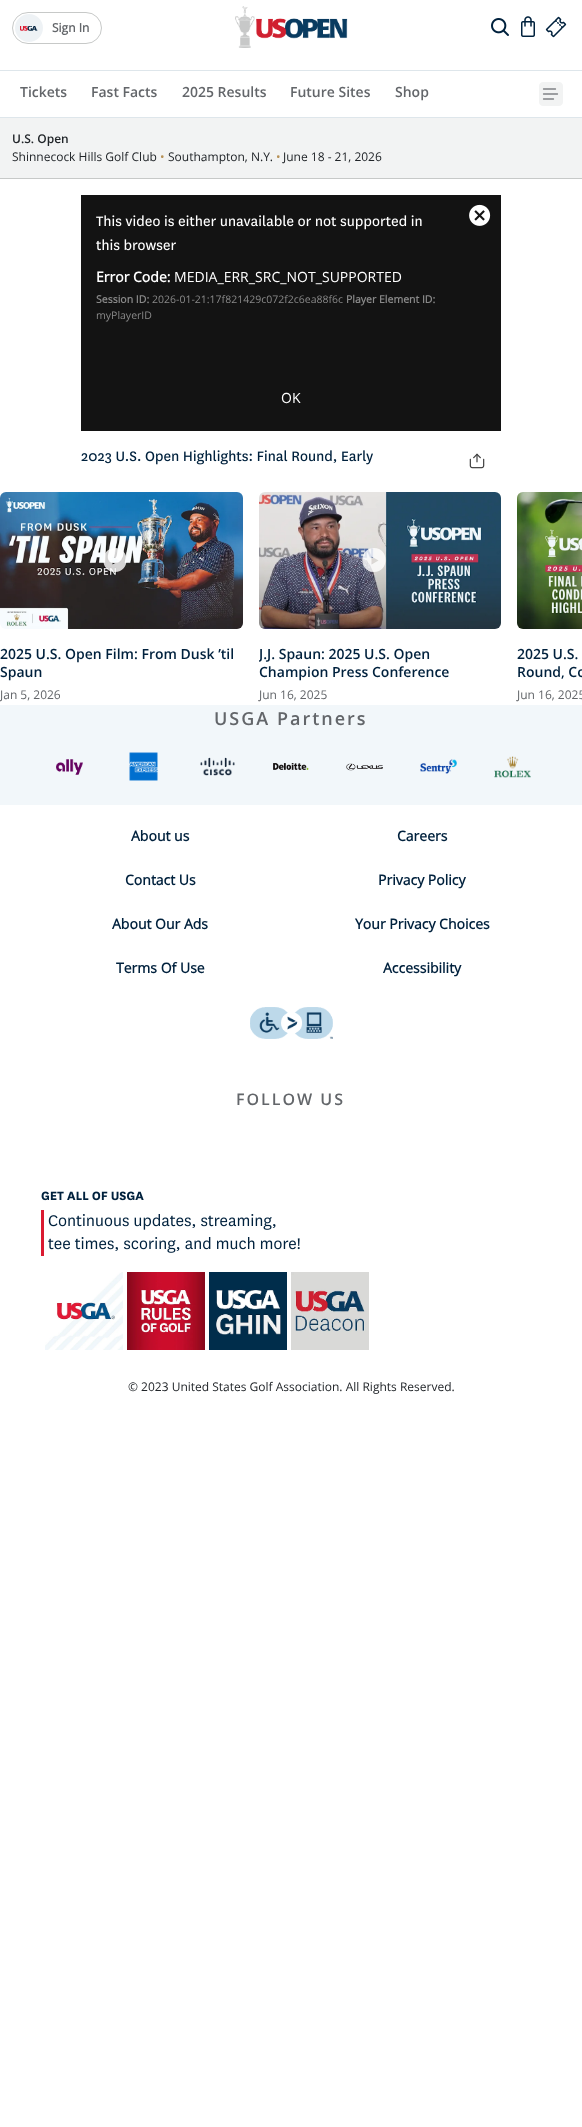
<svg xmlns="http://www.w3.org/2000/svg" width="582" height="2127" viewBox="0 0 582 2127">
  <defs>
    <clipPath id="clip1"><path d="M259 629h242v52H259z"/></clipPath>
  </defs>
  <rect width="100%" height="100%" fill="#fff"/>
  <path d="M0 178h582v1H0z" fill="#c7c9c8"/>
  <rect x="12.5" y="12.5" width="89" height="31" rx="15.5" fill="none" stroke="#c7c9c8"/>
  <image x="15" y="14" width="28" height="28" href="img/1.png"/>
  <image x="235" y="6" width="113" height="42" href="img/2.png"/>
  <path d="M0 70h582v1H0z" fill="#dee6eb"/>
  <path d="M0 117h582v1H0z" fill="#dee6eb"/>
  <image x="491" y="18" width="18" height="18" href="img/3.png"/>
  <image x="521" y="16" width="14" height="21" href="img/4.png"/>
  <image x="545" y="16" width="22" height="22" href="img/5.png"/>
  <image x="539" y="82" width="24" height="24" href="img/6.png"/>
  <path d="M0 118h582v60H0z" fill="#f2f3f3"/>
  <path d="M81 195h420v236H81z" fill="#131313"/>
  <image x="469" y="204" width="22" height="22" href="img/7.png"/>
  <image x="96" y="215" width="326" height="15" href="img/8.png"/>
  <image x="96" y="239" width="80" height="12" href="img/9.png"/>
  <image x="81" y="450" width="292" height="15" href="img/10.png"/>
  <image x="469" y="453" width="16" height="16" href="img/11.png"/>
  <image x="0" y="492" width="243" height="137" href="img/12.png"/>
  <path d="M115 572C130.5 572 130.5 548 115 548C99.5 548 99.5 572 115 572ZM112.5 564.5L119.5 560.5L112.5 556.5Z" fill="#ffffffcc" fill-rule="evenodd"/>
  <image x="259" y="492" width="242" height="137" href="img/13.png"/>
  <path d="M374 572C389.5 572 389.5 548 374 548C358.5 548 358.5 572 374 572ZM371.5 564.5L378.5 560.5L371.5 556.5Z" fill="#ffffffcc" fill-rule="evenodd"/>
  <image x="517" y="492" width="65" height="137" href="img/14.png"/>
  <path d="M0 705h582v100H0z" fill="#f2f7fa"/>
  <image x="56" y="759" width="27" height="16" href="img/15.png"/>
  <image x="129" y="752" width="29" height="29" href="img/16.png"/>
  <image x="200" y="757" width="35" height="19" href="img/17.png"/>
  <image x="273" y="763" width="36" height="7" href="img/18.png"/>
  <image x="346" y="763" width="37" height="8" href="img/19.png"/>
  <image x="420" y="759" width="37" height="15" href="img/20.png"/>
  <image x="494" y="756" width="37" height="22" href="img/21.png"/>
  <image x="250" y="1007" width="83" height="32" href="img/22.png"/>
  <image x="41" y="1191" width="103" height="10" href="img/23.png"/>
  <path d="M41 1210h3v46H41z" fill="#da1a31"/>
  <image x="48" y="1214" width="228" height="16" href="img/24.png"/>
  <image x="48" y="1237" width="252" height="16" href="img/25.png"/>
  <image x="45" y="1272" width="78" height="78" href="img/26.png"/>
  <image x="127" y="1272" width="78" height="78" href="img/27.png"/>
  <image x="209" y="1272" width="78" height="78" href="img/28.png"/>
  <image x="291" y="1272" width="78" height="78" href="img/29.png"/>
  <text x="52" y="32" font-family="Open Sans" font-size="12" font-weight="bold" fill="#63666a">Sign In</text>
  <g font-family="Open Sans" font-size="14" font-weight="600" fill="#63666a">
    <text x="20" y="97">Tickets</text>
    <text x="91" y="97">Fast Facts</text>
    <text x="182" y="97">2025 Results</text>
    <text x="290" y="97">Future Sites</text>
    <text x="395" y="97">Shop</text>
  </g>
  <text x="12" y="143" font-family="Open Sans" font-size="12" font-weight="600" fill="#212529">U.S. Open</text>
  <text x="12" y="161" font-family="Open Sans" font-size="12" fill="#212529">Shinnecock Hills Golf Club</text>
  <text x="160" y="161" font-family="Open Sans" font-size="12" fill="#b79157">•</text>
  <text x="168" y="161" font-family="Open Sans" font-size="12" fill="#212529">Southampton, N.Y.</text>
  <text x="276" y="161" font-family="Open Sans" font-size="12" fill="#b79157">•</text>
  <text x="283" y="161" font-family="Open Sans" font-size="12" fill="#212529">June 18 - 21, 2026</text>
  <text x="96" y="282" font-family="Open Sans" font-size="14" font-weight="bold" fill="#fff">Error Code:</text>
  <text x="174" y="282" font-family="Open Sans" font-size="14" fill="#fff">MEDIA_ERR_SRC_NOT_SUPPORTED</text>
  <text x="96" y="303" font-family="Open Sans" font-size="10.5" font-weight="bold" fill="#898989">Session ID:</text>
  <text x="152" y="303" font-family="Open Sans" font-size="10.5" fill="#898989">2026-01-21:17f821429c072f2c6ea88f6c</text>
  <text x="346" y="303" font-family="Open Sans" font-size="10.5" font-weight="bold" fill="#898989">Player Element ID:</text>
  <text x="96" y="319" font-family="Open Sans" font-size="10.5" fill="#898989">myPlayerID</text>
  <text x="281" y="403" font-family="Open Sans" font-size="14" fill="#fff">OK</text>
  <g font-family="Open Sans" font-size="14" font-weight="600" fill="#00213d">
    <text x="0" y="659">2025 U.S. Open Film: From Dusk ’til</text>
    <text x="0" y="677">Spaun</text>
  </g>
  <text x="0" y="699" font-family="Open Sans" font-size="12" fill="#63666a">Jan 5, 2026</text>
  <g clip-path="url(#clip1)">
    <text x="259" y="659" font-family="Open Sans" font-size="14" font-weight="600" fill="#00213d">J.J. Spaun: 2025 U.S. Open</text>
  </g>
  <text x="259" y="677" font-family="Open Sans" font-size="14" font-weight="600" fill="#00213d">Champion Press Conference</text>
  <text x="259" y="699" font-family="Open Sans" font-size="12" fill="#63666a">Jun 16, 2025</text>
  <g font-family="Open Sans" font-size="14" font-weight="600" fill="#00213d">
    <text x="517" y="659">2025 U.S.</text>
    <text x="517" y="677">Round, Co</text>
  </g>
  <text x="517" y="699" font-family="Open Sans" font-size="12" fill="#63666a">Jun 16, 2025</text>
  <text x="214" y="725" font-family="Open Sans" font-size="18" font-weight="600" letter-spacing="2" fill="#63666a">USGA Partners</text>
  <g font-family="Open Sans" font-size="14" font-weight="bold" fill="#00213d">
    <text x="131" y="841">About us</text>
    <text x="397" y="841">Careers</text>
    <text x="125" y="885">Contact Us</text>
    <text x="378" y="885">Privacy Policy</text>
    <text x="112" y="929">About Our Ads</text>
    <text x="355" y="929">Your Privacy Choices</text>
    <text x="116" y="973">Terms Of Use</text>
    <text x="383" y="973">Accessibility</text>
  </g>
  <text x="236" y="1105" font-family="Open Sans" font-size="16" font-weight="600" letter-spacing="2" fill="#63666a">FOLLOW US</text>
  <text x="128" y="1391" font-family="Open Sans" font-size="12" fill="#212529">© 2023 United States Golf Association. All Rights Reserved.</text>
</svg>
